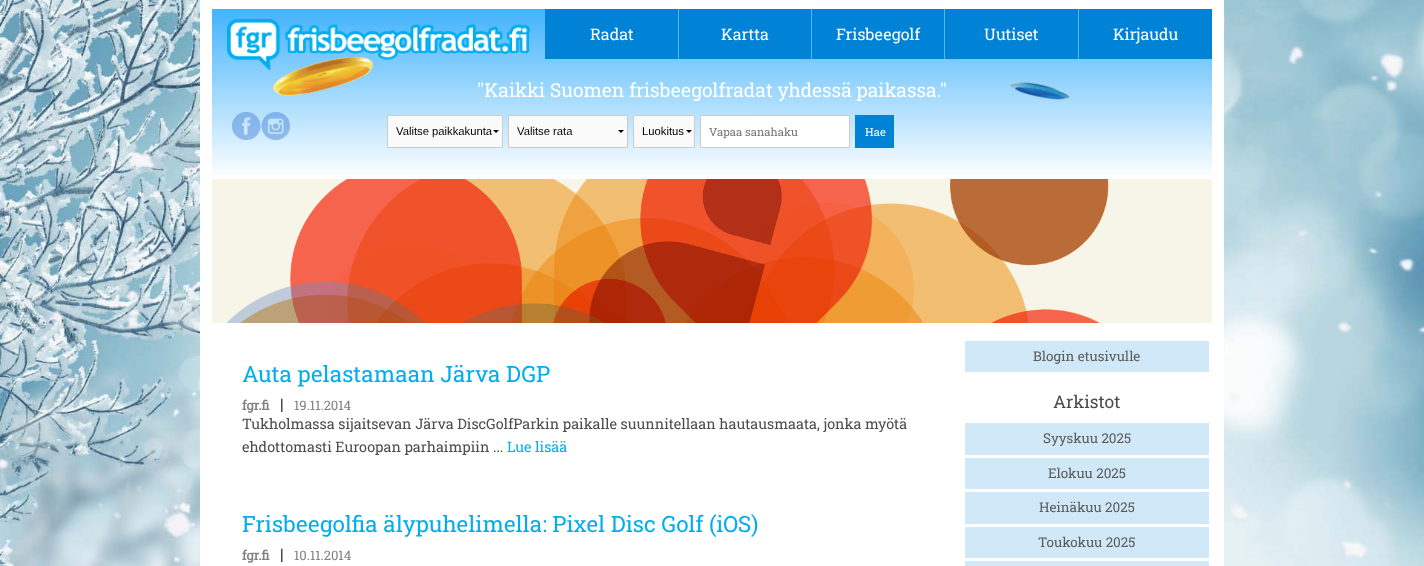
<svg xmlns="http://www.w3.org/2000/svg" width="1424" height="566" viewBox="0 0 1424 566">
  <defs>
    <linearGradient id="g1" gradientUnits="userSpaceOnUse" x1="712" y1="9" x2="712" y2="179"><stop offset="0" stop-color="#43b3fc"/><stop offset="1" stop-color="#fff"/></linearGradient>
  </defs>
  <rect width="100%" height="100%" fill="#fff"/>
  <image x="0" y="0" width="1424" height="566" href="img/1.png"/>
  <path d="M200 0h1024v566H200z" fill="#fff"/>
  <path d="M212 9h1000v168H212z" fill="url(#g1)"/>
  <image x="227" y="19" width="303" height="51" href="img/2.png"/>
  <path d="M545 9h133v50H545z" fill="#0083d7"/>
  <path d="M678 9h1v50H678z" fill="#4fb8fc"/>
  <path d="M679 9h132v50H679z" fill="#0083d7"/>
  <path d="M811 9h1v50H811z" fill="#4fb8fc"/>
  <path d="M812 9h132v50H812z" fill="#0083d7"/>
  <path d="M944 9h1v50H944z" fill="#4fb8fc"/>
  <path d="M945 9h133v50H945z" fill="#0083d7"/>
  <path d="M1078 9h1v50H1078z" fill="#4fb8fc"/>
  <path d="M1079 9h133v50H1079z" fill="#0083d7"/>
  <image x="232" y="112" width="29" height="28" href="img/3.png"/>
  <image x="261" y="112" width="29" height="28" href="img/4.png"/>
  <image x="273" y="56" width="101" height="40" href="img/5.png"/>
  <path d="M388 116h114v31H388z" fill="#fafafa"/>
  <path d="M499 130L496 133L493 130Z" fill="#000"/>
  <path d="M387.5 115.5h115v32H387.5z" fill="none" stroke="#ccc"/>
  <path d="M509 116h118v31H509z" fill="#fafafa"/>
  <path d="M624 130L621 133L618 130Z" fill="#000"/>
  <path d="M508.5 115.5h119v32H508.5z" fill="none" stroke="#ccc"/>
  <path d="M634 116h60v31H634z" fill="#fafafa"/>
  <path d="M692 130L689 133L686 130Z" fill="#000"/>
  <path d="M633.5 115.5h61v32H633.5z" fill="none" stroke="#ccc"/>
  <path d="M700.5 115.5h149v32H700.5z" fill="#fff" stroke="#ccc"/>
  <path d="M855 115h39v33H855z" fill="#0083d7"/>
  <image x="1010" y="81" width="60" height="19" href="img/6.png"/>
  <image x="212" y="179" width="1000" height="144" href="img/7.png"/>
  <path d="M965 341h244v31H965z" fill="#d1e8f8"/>
  <path d="M965 423h244v32H965z" fill="#d1e8f8"/>
  <path d="M965 458h244v31H965z" fill="#d1e8f8"/>
  <path d="M965 492h244v32H965z" fill="#d1e8f8"/>
  <path d="M965 527h244v31H965z" fill="#d1e8f8"/>
  <path d="M965 561h244v5H965z" fill="#d1e8f8"/>
  <g font-family="Roboto Slab" font-size="16" fill="#fff">
    <text x="590" y="40">Radat</text>
    <text x="721" y="40">Kartta</text>
    <text x="836" y="40">Frisbeegolf</text>
    <text x="984" y="40">Uutiset</text>
    <text x="1113" y="40">Kirjaudu</text>
  </g>
  <text x="477" y="97" font-family="Roboto Slab" font-size="19.2" fill="#fff">"Kaikki Suomen frisbeegolfradat yhdessä paikassa."</text>
  <g font-family="Liberation Sans" font-size="11.25" fill="#000">
    <text x="396" y="135">Valitse paikkakunta</text>
    <text x="517" y="135">Valitse rata</text>
    <text x="642" y="135">Luokitus</text>
  </g>
  <text x="709" y="136" font-family="Roboto Slab" font-size="11.25" fill="#757575">Vapaa sanahaku</text>
  <text x="865" y="136" font-family="Roboto Slab" font-size="11.25" fill="#fff">Hae</text>
  <text x="242" y="382" font-family="Roboto Slab" font-size="22.4" fill="#00aeef">Auta pelastamaan Järva DGP</text>
  <text x="242" y="410" font-family="Roboto Slab" font-size="13" font-weight="bold" fill="#828282">fgr.fi</text>
  <text x="280" y="410" font-family="Roboto Slab" font-size="16" fill="#222">|</text>
  <text x="294" y="410" font-family="Roboto Slab" font-size="13" fill="#828282">19.11.2014</text>
  <g font-family="Roboto Slab" font-size="14.4" fill="#4c4c4c">
    <text x="242" y="429">Tukholmassa sijaitsevan Järva DiscGolfParkin paikalle suunnitellaan hautausmaata, jonka myötä</text>
    <text x="242" y="452">ehdottomasti Euroopan parhaimpiin ...</text>
  </g>
  <text x="507" y="452" font-family="Roboto Slab" font-size="14.4" fill="#00aeef">Lue lisää</text>
  <text x="242" y="532" font-family="Roboto Slab" font-size="22.4" fill="#00aeef">Frisbeegolfia älypuhelimella: Pixel Disc Golf (iOS)</text>
  <text x="242" y="560" font-family="Roboto Slab" font-size="13" font-weight="bold" fill="#828282">fgr.fi</text>
  <text x="280" y="560" font-family="Roboto Slab" font-size="16" fill="#222">|</text>
  <text x="294" y="560" font-family="Roboto Slab" font-size="13" fill="#828282">10.11.2014</text>
  <text x="1033" y="361" font-family="Roboto Slab" font-size="13.5" fill="#5b5b5b">Blogin etusivulle</text>
  <text x="1053" y="408" font-family="Roboto Slab" font-size="17.5" fill="#4c4c4c">Arkistot</text>
  <g font-family="Roboto Slab" font-size="13.5" fill="#5b5b5b">
    <text x="1043" y="443">Syyskuu 2025</text>
    <text x="1048" y="478">Elokuu 2025</text>
    <text x="1039" y="512">Heinäkuu 2025</text>
    <text x="1038" y="547">Toukokuu 2025</text>
  </g>
</svg>
